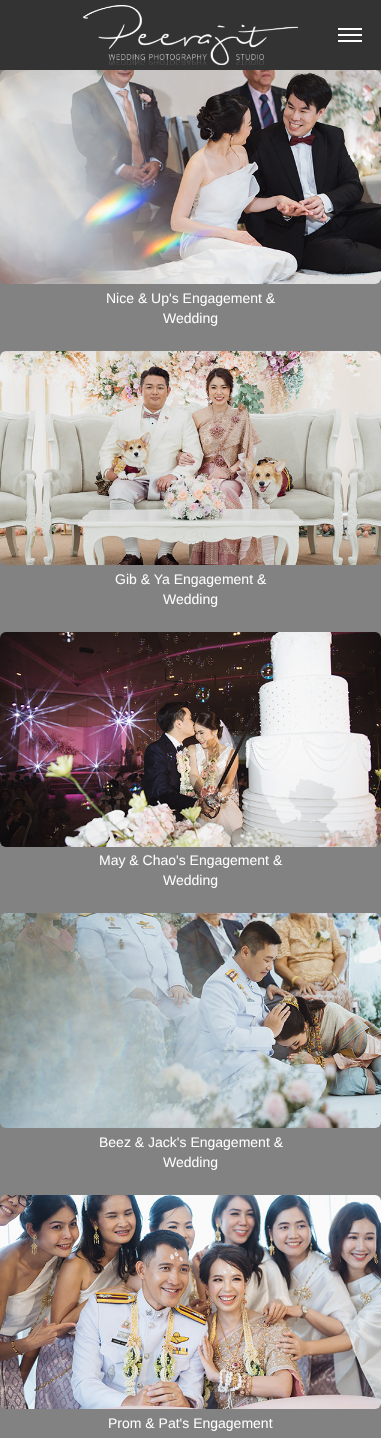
<svg xmlns="http://www.w3.org/2000/svg" width="381" height="1438" viewBox="0 0 381 1438">
  <rect width="100%" height="100%" fill="#828282"/>
  <path d="M0 0h381v70H0z" fill="#333"/>
  <image x="82" y="5" width="217" height="60" href="img/1.png"/>
  <path d="M338 28h24v2H338z" fill="#fff"/>
  <path d="M338 34h24v2H338z" fill="#fff"/>
  <path d="M338 40h24v2H338z" fill="#fff"/>
  <image x="0" y="70" width="381" height="214" href="img/2.png"/>
  <image x="0" y="351" width="381" height="214" href="img/3.png"/>
  <image x="0" y="632" width="381" height="215" href="img/4.png"/>
  <image x="0" y="913" width="381" height="215" href="img/5.png"/>
  <image x="0" y="1195" width="381" height="214" href="img/6.png"/>
  <g font-family="Liberation Sans" font-size="14" fill="#fff">
    <text x="106" y="303">Nice &amp; Up's Engagement &amp;</text>
    <text x="163" y="323">Wedding</text>
    <text x="115" y="584">Gib &amp; Ya Engagement &amp;</text>
    <text x="163" y="604">Wedding</text>
    <text x="99" y="865">May &amp; Chao's Engagement &amp;</text>
    <text x="163" y="885">Wedding</text>
    <text x="99" y="1147">Beez &amp; Jack's Engagement &amp;</text>
    <text x="163" y="1167">Wedding</text>
    <text x="108" y="1428">Prom &amp; Pat's Engagement</text>
  </g>
</svg>
